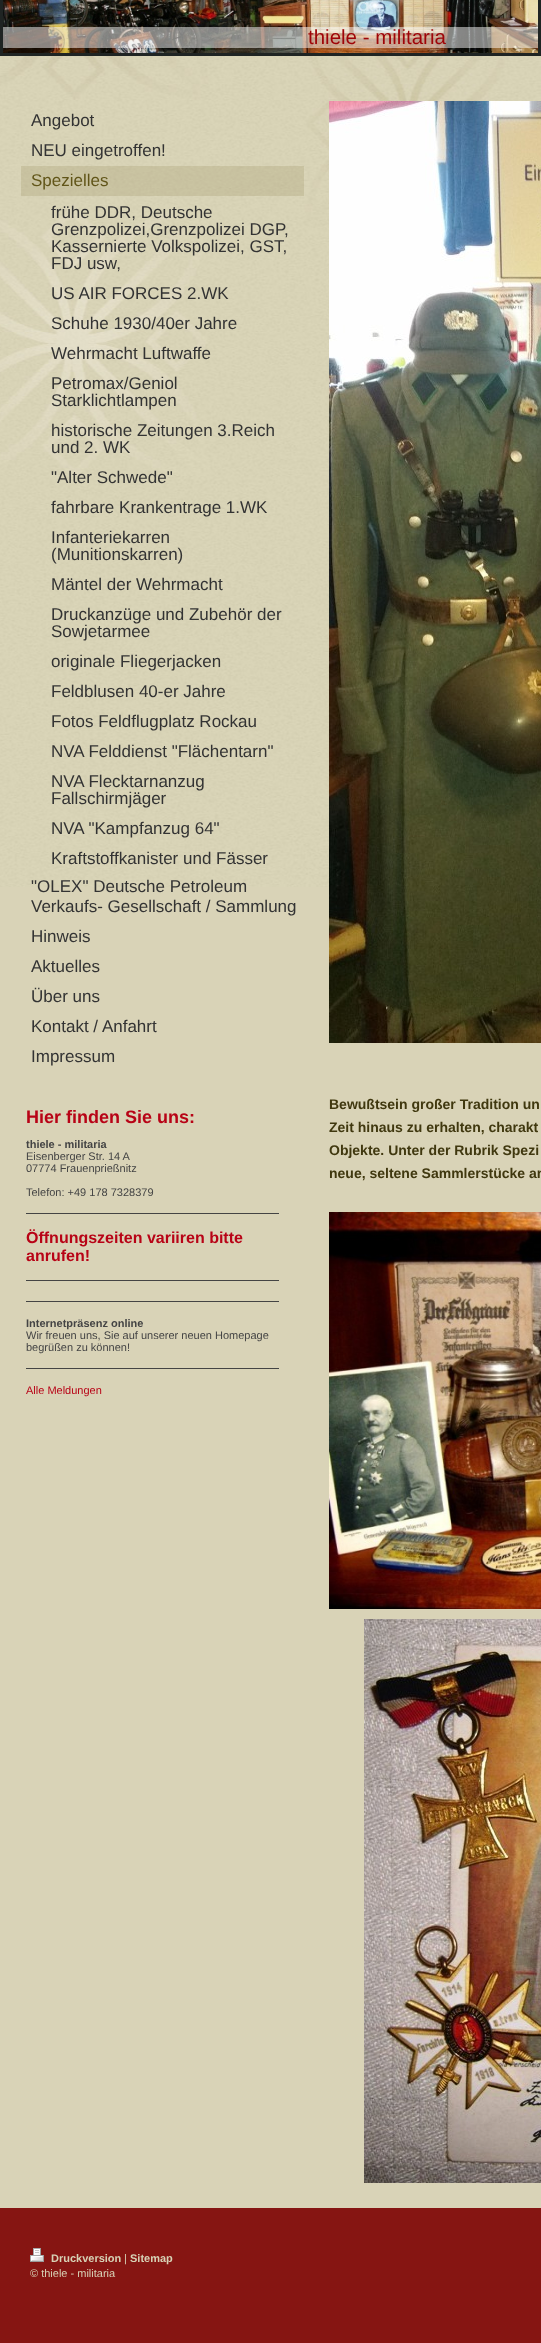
<svg xmlns="http://www.w3.org/2000/svg" width="541" height="2343" viewBox="0 0 541 2343">
  <rect width="100%" height="100%" fill="#d9d3b7"/>
  <image x="0" y="56" width="541" height="831" href="img/1.png"/>
  <path d="M1.5 -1.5h538v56H1.5z" fill="none" stroke="#1f2423" stroke-width="3"/>
  <image x="3" y="0" width="535" height="53" href="img/2.png"/>
  <path d="M3 27h535v21H3z" fill="#ffffff80"/>
  <path d="M21 166h283v30H21z" fill="#6f622726"/>
  <path d="M26 1213h253v1H26z" fill="#444"/>
  <path d="M26 1280h253v1H26z" fill="#444"/>
  <path d="M26 1301h253v1H26z" fill="#444"/>
  <path d="M26 1368h253v1H26z" fill="#444"/>
  <image x="329" y="101" width="212" height="942" href="img/3.png"/>
  <image x="329" y="1212" width="212" height="397" href="img/4.png"/>
  <image x="364" y="1619" width="177" height="564" href="img/5.png"/>
  <path d="M0 2208h541v135H0z" fill="#861512"/>
  <image x="30" y="2248" width="14" height="14" href="img/6.png"/>
  <text x="308" y="44" font-family="Liberation Sans" font-size="20.5" fill="#9f0408">thiele - militaria</text>
  <g font-family="Liberation Sans" font-size="17" fill="#333">
    <text x="31" y="126">Angebot</text>
    <text x="31" y="156">NEU eingetroffen!</text>
  </g>
  <text x="31" y="186" font-family="Liberation Sans" font-size="17" fill="#615519">Spezielles</text>
  <g font-family="Liberation Sans" font-size="17" fill="#333">
    <text x="51" y="218">frühe DDR, Deutsche</text>
    <text x="51" y="235">Grenzpolizei,Grenzpolizei DGP,</text>
    <text x="51" y="252">Kassernierte Volkspolizei, GST,</text>
    <text x="51" y="269">FDJ usw,</text>
    <text x="51" y="299">US AIR FORCES 2.WK</text>
    <text x="51" y="329">Schuhe 1930/40er Jahre</text>
    <text x="51" y="359">Wehrmacht Luftwaffe</text>
    <text x="51" y="389">Petromax/Geniol</text>
    <text x="51" y="406">Starklichtlampen</text>
    <text x="51" y="436">historische Zeitungen 3.Reich</text>
    <text x="51" y="453">und 2. WK</text>
    <text x="51" y="483">"Alter Schwede"</text>
    <text x="51" y="513">fahrbare Krankentrage 1.WK</text>
    <text x="51" y="543">Infanteriekarren</text>
    <text x="51" y="560">(Munitionskarren)</text>
    <text x="51" y="590">Mäntel der Wehrmacht</text>
    <text x="51" y="620">Druckanzüge und Zubehör der</text>
    <text x="51" y="637">Sowjetarmee</text>
    <text x="51" y="667">originale Fliegerjacken</text>
    <text x="51" y="697">Feldblusen 40-er Jahre</text>
    <text x="51" y="727">Fotos Feldflugplatz Rockau</text>
    <text x="51" y="757">NVA Felddienst "Flächentarn"</text>
    <text x="51" y="787">NVA Flecktarnanzug</text>
    <text x="51" y="804">Fallschirmjäger</text>
    <text x="51" y="834">NVA "Kampfanzug 64"</text>
    <text x="51" y="864">Kraftstoffkanister und Fässer</text>
    <text x="31" y="892">"OLEX" Deutsche Petroleum</text>
    <text x="31" y="912">Verkaufs- Gesellschaft / Sammlung</text>
    <text x="31" y="942">Hinweis</text>
    <text x="31" y="972">Aktuelles</text>
    <text x="31" y="1002">Über uns</text>
    <text x="31" y="1032">Kontakt / Anfahrt</text>
    <text x="31" y="1062">Impressum</text>
  </g>
  <text x="26" y="1123" font-family="Liberation Sans" font-size="18" font-weight="bold" fill="#b80316">Hier finden Sie uns:</text>
  <text x="26" y="1148" font-family="Liberation Sans" font-size="11" font-weight="bold" fill="#444">thiele - militaria</text>
  <g font-family="Liberation Sans" font-size="11" fill="#444">
    <text x="26" y="1160">Eisenberger Str. 14 A</text>
    <text x="26" y="1172">07774 Frauenprießnitz</text>
    <text x="26" y="1196">Telefon: +49 178 7328379</text>
  </g>
  <g font-family="Liberation Sans" font-size="16" font-weight="bold" fill="#b80316">
    <text x="26" y="1243">Öffnungszeiten variiren bitte</text>
    <text x="26" y="1261">anrufen!</text>
  </g>
  <text x="26" y="1327" font-family="Liberation Sans" font-size="11" font-weight="bold" fill="#444">Internetpräsenz online</text>
  <g font-family="Liberation Sans" font-size="11" fill="#444">
    <text x="26" y="1339">Wir freuen uns, Sie auf unserer neuen Homepage</text>
    <text x="26" y="1351">begrüßen zu können!</text>
  </g>
  <text x="26" y="1394" font-family="Liberation Sans" font-size="11" fill="#b80316">Alle Meldungen</text>
  <g font-family="Liberation Sans" font-size="14" font-weight="bold" fill="#40380f">
    <text x="329" y="1109">Bewußtsein großer Tradition un</text>
    <text x="329" y="1132">Zeit hinaus zu erhalten, charakt</text>
    <text x="329" y="1155">Objekte. Unter der Rubrik Spezi</text>
    <text x="329" y="1178">neue, seltene Sammlerstücke an</text>
  </g>
  <text x="51" y="2262" font-family="Liberation Sans" font-size="11" font-weight="bold" fill="#d7d1b5">Druckversion</text>
  <text x="124" y="2262" font-family="Liberation Sans" font-size="11" fill="#d7d1b5">|</text>
  <text x="130" y="2262" font-family="Liberation Sans" font-size="11" font-weight="bold" fill="#d7d1b5">Sitemap</text>
  <text x="30" y="2277" font-family="Liberation Sans" font-size="11" fill="#d7d1b5">© thiele - militaria</text>
</svg>
